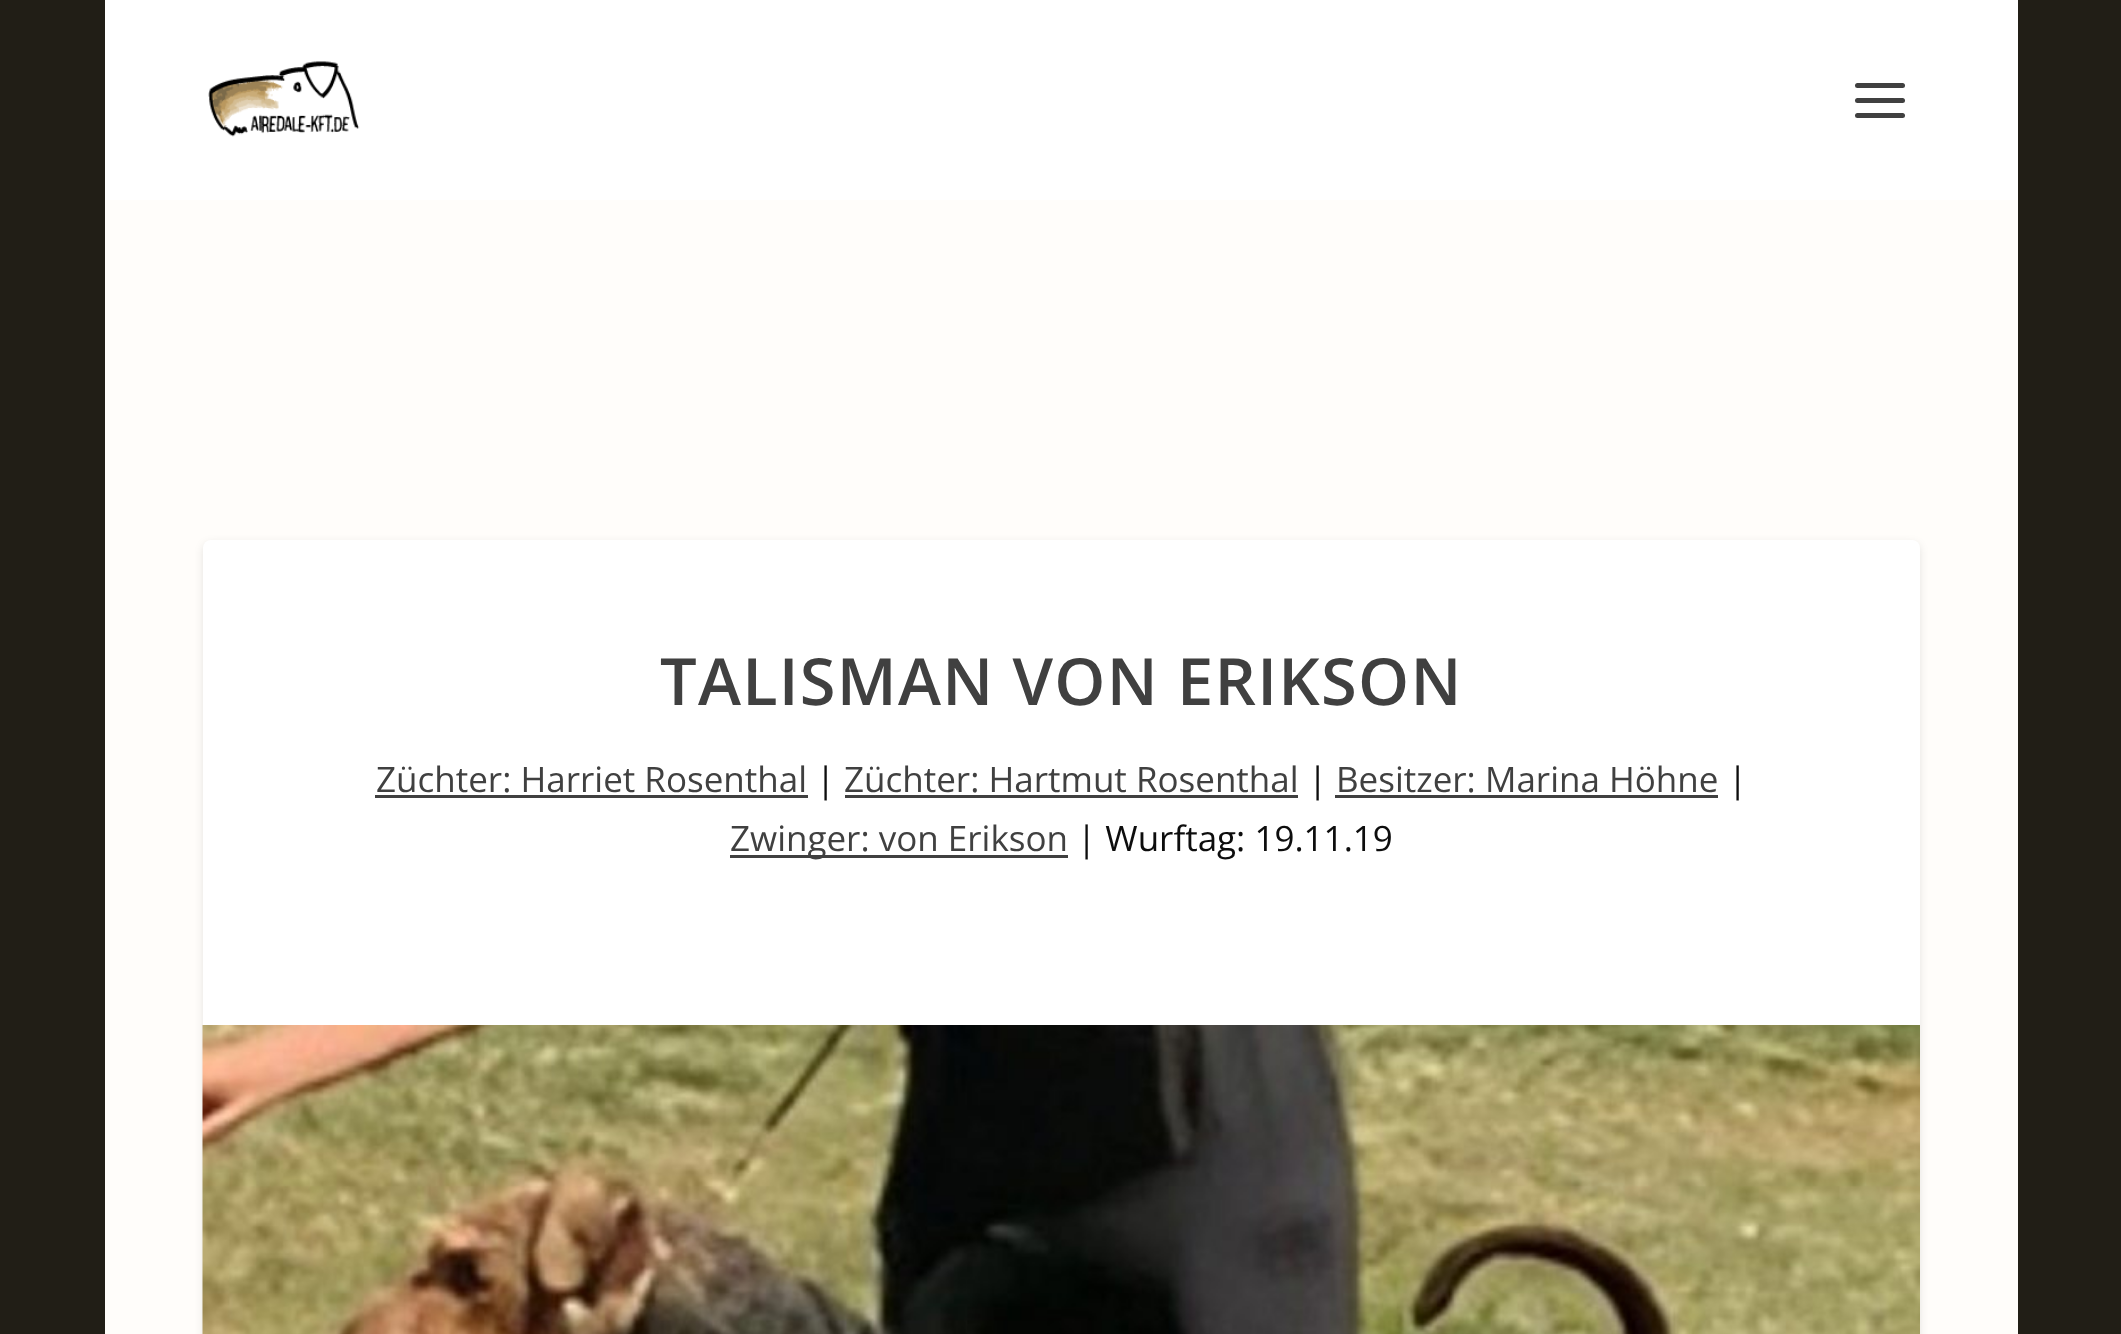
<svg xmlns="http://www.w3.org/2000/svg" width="2121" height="1334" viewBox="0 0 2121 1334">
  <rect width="100%" height="100%" fill="#211e16"/>
  <path d="M105 200h1913v1134H105z" fill="#fffdfa"/>
  <path d="M105 0h1913v200H105z" fill="#fff"/>
  <image x="208" y="61" width="152" height="76" href="img/1.png"/>
  <rect x="1855" y="83" width="50" height="5" rx="2.5" fill="#404040"/>
  <rect x="1855" y="98" width="50" height="5" rx="2.5" fill="#404040"/>
  <rect x="1855" y="113" width="50" height="5" rx="2.5" fill="#404040"/>
  <rect x="203" y="543" width="1717" height="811" rx="8" fill="#0000001a" filter="blur(4px)"/>
  <rect x="203" y="540" width="1717" height="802" rx="8" fill="#fff"/>
  <path d="M375 795h433v3H375z" fill="#404040"/>
  <path d="M845 795h453v3H845z" fill="#404040"/>
  <path d="M1335 795h383v3H1335z" fill="#404040"/>
  <path d="M730 855h338v3H730z" fill="#404040"/>
  <image x="202" y="1025" width="1718" height="309" href="img/2.png"/>
  <text x="660" y="705" font-family="Open Sans" font-size="65" font-weight="600" letter-spacing="1.25" fill="#404040">TALISMAN VON ERIKSON</text>
  <text x="376" y="792" font-family="Open Sans" font-size="35" fill="#404040">Züchter: Harriet Rosenthal</text>
  <text x="816" y="792" font-family="Open Sans" font-size="35" fill="#0d0d0d">|</text>
  <text x="844" y="792" font-family="Open Sans" font-size="35" fill="#404040">Züchter: Hartmut Rosenthal</text>
  <text x="1308" y="792" font-family="Open Sans" font-size="35" fill="#0d0d0d">|</text>
  <text x="1336" y="792" font-family="Open Sans" font-size="35" fill="#404040">Besitzer: Marina Höhne</text>
  <text x="1728" y="792" font-family="Open Sans" font-size="35" fill="#0d0d0d">|</text>
  <text x="730" y="851" font-family="Open Sans" font-size="35" fill="#404040">Zwinger: von Erikson</text>
  <text x="1077" y="851" font-family="Open Sans" font-size="35" fill="#0d0d0d">| Wurftag: 19.11.19</text>
</svg>
